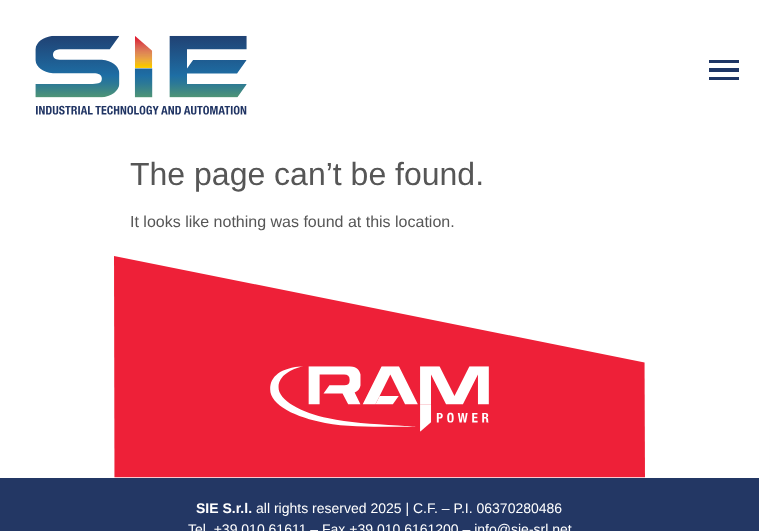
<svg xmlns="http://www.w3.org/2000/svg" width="759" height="531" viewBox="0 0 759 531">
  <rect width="100%" height="100%" fill="#fff"/>
  <image x="35" y="35" width="212" height="80" href="img/1.png"/>
  <path d="M709 60h30v3H709z" fill="#1e3665"/>
  <path d="M709 68h30v4H709z" fill="#1e3665"/>
  <path d="M709 77h30v3H709z" fill="#1e3665"/>
  <image x="114" y="256" width="531" height="222" href="img/2.png"/>
  <path d="M0 478h759v53H0z" fill="#233764"/>
  <text x="130" y="185" font-family="Liberation Sans" font-size="32" fill="#565656">The page can’t be found.</text>
  <text x="130" y="227" font-family="Liberation Sans" font-size="16" fill="#565656">It looks like nothing was found at this location.</text>
  <text x="196" y="513" font-family="Liberation Sans" font-size="14" font-weight="bold" fill="#fff">SIE S.r.l.</text>
  <g font-family="Liberation Sans" font-size="14" fill="#fff">
    <text x="256" y="513">all rights reserved 2025 | C.F. – P.I. 06370280486</text>
    <text x="188" y="534">Tel. +39 010 61611 – Fax +39 010 6161200 – info@sie-srl.net</text>
  </g>
</svg>
